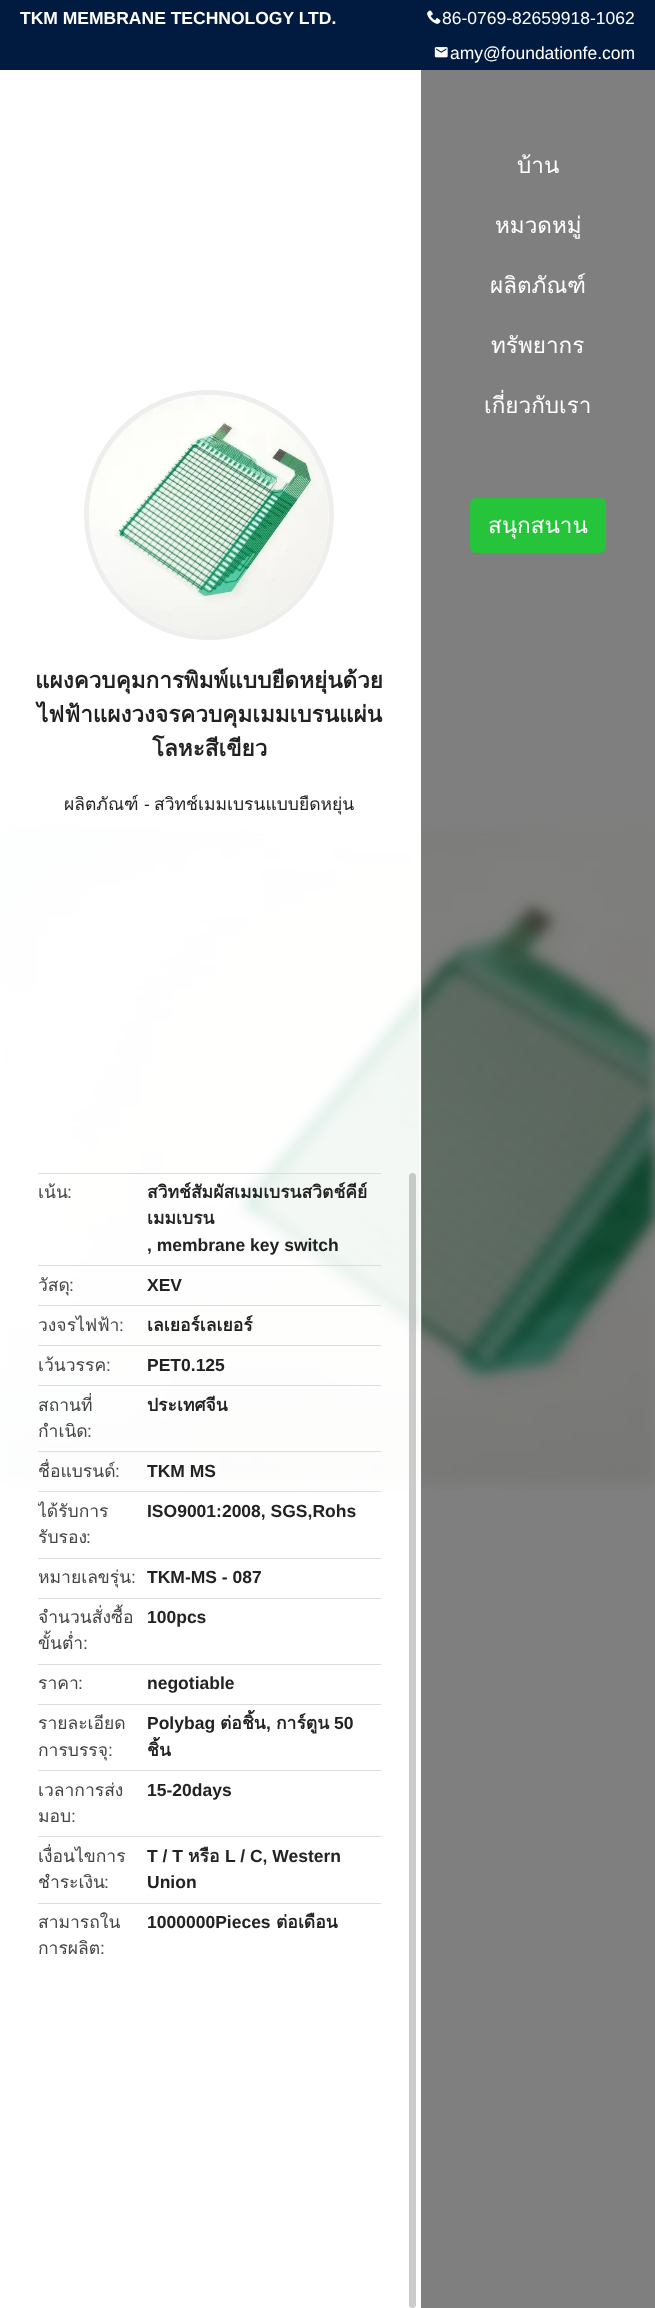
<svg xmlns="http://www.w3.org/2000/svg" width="655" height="2308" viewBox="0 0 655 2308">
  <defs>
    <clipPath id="clip1"><path d="M38 1174h343v91H38z"/></clipPath>
    <clipPath id="clip2"><path d="M38 1266h343v39H38z"/></clipPath>
    <clipPath id="clip3"><path d="M38 1346h343v39H38z"/></clipPath>
    <clipPath id="clip4"><path d="M38 1386h343v65H38z"/></clipPath>
    <clipPath id="clip5"><path d="M38 1453h343v38H38z"/></clipPath>
    <clipPath id="clip6"><path d="M38 1493h343v65H38z"/></clipPath>
    <clipPath id="clip7"><path d="M38 1599h343v65H38z"/></clipPath>
    <clipPath id="clip8"><path d="M38 1838h343v65H38z"/></clipPath>
  </defs>
  <rect width="100%" height="100%" fill="#fff"/>
  <path d="M0 0h655v70H0z" fill="#001b3f"/>
  <image x="427" y="10" width="14" height="14" href="img/1.png"/>
  <image x="434" y="47" width="14" height="11" href="img/2.png"/>
  <image x="0" y="822" width="655" height="668" href="img/4.png"/>
  <path d="M0 822h421v667H0z" fill="#ffffffcc"/>
  <path d="M419 830h3v658H419z" fill="#ffffff99"/>
  <path d="M421 70h234v2238H421z" fill="#00000080"/>
  <rect x="470" y="498" width="136" height="55" rx="6" fill="#26c43a"/>
  <circle cx="209" cy="515" r="122.5" fill="none" stroke="#eee" stroke-width="5"/>
  <image x="89" y="395" width="240" height="240" href="img/3.png"/>
  <path d="M38 1173h343v1H38z" fill="#ddd"/>
  <path d="M38 1265h343v1H38z" fill="#ddd"/>
  <path d="M38 1305h343v1H38z" fill="#ddd"/>
  <path d="M38 1345h343v1H38z" fill="#ddd"/>
  <path d="M38 1385h343v1H38z" fill="#ddd"/>
  <path d="M38 1451h343v1H38z" fill="#ddd"/>
  <path d="M38 1491h343v1H38z" fill="#ddd"/>
  <path d="M38 1558h343v1H38z" fill="#ddd"/>
  <path d="M38 1598h343v1H38z" fill="#ddd"/>
  <path d="M38 1664h343v1H38z" fill="#ddd"/>
  <path d="M38 1704h343v1H38z" fill="#ddd"/>
  <path d="M38 1770h343v1H38z" fill="#ddd"/>
  <path d="M38 1836h343v1H38z" fill="#ddd"/>
  <path d="M38 1903h343v1H38z" fill="#ddd"/>
  <rect x="409" y="1173" width="7" height="1135" rx="3.5" fill="#aaaaaa99"/>
  <text x="20" y="24" font-family="Liberation Sans" font-size="17.5" font-weight="bold" fill="#fff">TKM MEMBRANE TECHNOLOGY LTD.</text>
  <g font-family="Liberation Sans" font-size="17.5" fill="#fff">
    <text x="442" y="24">86-0769-82659918-1062</text>
    <text x="450" y="59">amy@foundationfe.com</text>
  </g>
  <g font-family="Loma" font-size="22.5" fill="#fff">
    <text x="517" y="173">บ้าน</text>
    <text x="495" y="233">หมวดหมู่</text>
    <text x="490" y="293">ผลิตภัณฑ์</text>
    <text x="491" y="353">ทรัพยากร</text>
    <text x="484" y="413">เกี่ยวกับเรา</text>
    <text x="488" y="533">สนุกสนาน</text>
  </g>
  <g font-family="Loma" font-size="22.5" font-weight="bold" fill="#222">
    <text x="35" y="688">แผงควบคุมการพิมพ์แบบยืดหยุ่นด้วย</text>
    <text x="37" y="722">ไฟฟ้าแผงวงจรควบคุมเมมเบรนแผ่น</text>
    <text x="152" y="756">โลหะสีเขียว</text>
  </g>
  <text x="64" y="810" font-family="Loma" font-size="17.5" fill="#222">ผลิตภัณฑ์</text>
  <text x="144" y="810" font-family="Liberation Sans" font-size="17.5" fill="#222">-</text>
  <text x="154" y="810" font-family="Loma" font-size="17.5" fill="#222">สวิทช์เมมเบรนแบบยืดหยุ่น</text>
  <g clip-path="url(#clip1)">
    <text x="38" y="1198" font-family="Loma" font-size="17.5" fill="#444">เน้น</text>
  </g>
  <text x="67" y="1198" font-family="Liberation Sans" font-size="17.5" fill="#444">:</text>
  <g font-family="Loma" font-size="17.5" font-weight="bold" fill="#222">
    <text x="147" y="1198">สวิทช์สัมผัสเมมเบรนสวิตช์คีย์</text>
    <text x="147" y="1224">เมมเบรน</text>
  </g>
  <text x="147" y="1251" font-family="Liberation Sans" font-size="17.5" font-weight="bold" fill="#222">, membrane key switch</text>
  <g clip-path="url(#clip2)">
    <text x="38" y="1291" font-family="Loma" font-size="17.5" fill="#444">วัสดุ</text>
  </g>
  <text x="69" y="1291" font-family="Liberation Sans" font-size="17.5" fill="#444">:</text>
  <text x="147" y="1291" font-family="Liberation Sans" font-size="17.5" font-weight="bold" fill="#222">XEV</text>
  <text x="38" y="1331" font-family="Loma" font-size="17.5" fill="#444">วงจรไฟฟ้า</text>
  <text x="119" y="1331" font-family="Liberation Sans" font-size="17.5" fill="#444">:</text>
  <text x="147" y="1331" font-family="Loma" font-size="17.5" font-weight="bold" fill="#222">เลเยอร์เลเยอร์</text>
  <g clip-path="url(#clip3)">
    <text x="38" y="1371" font-family="Loma" font-size="17.5" fill="#444">เว้นวรรค</text>
  </g>
  <text x="106" y="1371" font-family="Liberation Sans" font-size="17.5" fill="#444">:</text>
  <text x="147" y="1371" font-family="Liberation Sans" font-size="17.5" font-weight="bold" fill="#222">PET0.125</text>
  <text x="38" y="1411" font-family="Loma" font-size="17.5" fill="#444">สถานที่</text>
  <g clip-path="url(#clip4)">
    <text x="38" y="1437" font-family="Loma" font-size="17.5" fill="#444">กำเนิด</text>
  </g>
  <text x="87" y="1437" font-family="Liberation Sans" font-size="17.5" fill="#444">:</text>
  <text x="147" y="1411" font-family="Loma" font-size="17.5" font-weight="bold" fill="#222">ประเทศจีน</text>
  <g clip-path="url(#clip5)">
    <text x="38" y="1477" font-family="Loma" font-size="17.5" fill="#444">ชื่อแบรนด์</text>
  </g>
  <text x="115" y="1477" font-family="Liberation Sans" font-size="17.5" fill="#444">:</text>
  <text x="147" y="1477" font-family="Liberation Sans" font-size="17.5" font-weight="bold" fill="#222">TKM MS</text>
  <g clip-path="url(#clip6)">
    <g font-family="Loma" font-size="17.5" fill="#444">
      <text x="38" y="1517">ได้รับการ</text>
      <text x="38" y="1543">รับรอง</text>
    </g>
  </g>
  <text x="86" y="1543" font-family="Liberation Sans" font-size="17.5" fill="#444">:</text>
  <text x="147" y="1517" font-family="Liberation Sans" font-size="17.5" font-weight="bold" fill="#222">ISO9001:2008, SGS,Rohs</text>
  <text x="38" y="1583" font-family="Loma" font-size="17.5" fill="#444">หมายเลขรุ่น</text>
  <text x="131" y="1583" font-family="Liberation Sans" font-size="17.5" fill="#444">:</text>
  <text x="147" y="1583" font-family="Liberation Sans" font-size="17.5" font-weight="bold" fill="#222">TKM-MS - 087</text>
  <g clip-path="url(#clip7)">
    <g font-family="Loma" font-size="17.5" fill="#444">
      <text x="38" y="1623">จำนวนสั่งซื้อ</text>
      <text x="38" y="1649">ขั้นต่ำ</text>
    </g>
  </g>
  <text x="83" y="1649" font-family="Liberation Sans" font-size="17.5" fill="#444">:</text>
  <text x="147" y="1623" font-family="Liberation Sans" font-size="17.5" font-weight="bold" fill="#222">100pcs</text>
  <text x="38" y="1689" font-family="Loma" font-size="17.5" fill="#444">ราคา</text>
  <text x="78" y="1689" font-family="Liberation Sans" font-size="17.5" fill="#444">:</text>
  <text x="147" y="1689" font-family="Liberation Sans" font-size="17.5" font-weight="bold" fill="#222">negotiable</text>
  <g font-family="Loma" font-size="17.5" fill="#444">
    <text x="38" y="1729">รายละเอียด</text>
    <text x="38" y="1756">การบรรจุ</text>
  </g>
  <text x="108" y="1756" font-family="Liberation Sans" font-size="17.5" fill="#444">:</text>
  <text x="147" y="1729" font-family="Liberation Sans" font-size="17.5" font-weight="bold" fill="#222">Polybag</text>
  <text x="220" y="1729" font-family="Loma" font-size="17.5" font-weight="bold" fill="#222">ต่อชิ้น</text>
  <text x="266" y="1729" font-family="Liberation Sans" font-size="17.5" font-weight="bold" fill="#222">,</text>
  <text x="276" y="1729" font-family="Loma" font-size="17.5" font-weight="bold" fill="#222">การ์ตูน</text>
  <text x="334" y="1729" font-family="Liberation Sans" font-size="17.5" font-weight="bold" fill="#222">50</text>
  <text x="147" y="1756" font-family="Loma" font-size="17.5" font-weight="bold" fill="#222">ชิ้น</text>
  <g font-family="Loma" font-size="17.5" fill="#444">
    <text x="38" y="1796">เวลาการส่ง</text>
    <text x="38" y="1822">มอบ</text>
  </g>
  <text x="71" y="1822" font-family="Liberation Sans" font-size="17.5" fill="#444">:</text>
  <text x="147" y="1796" font-family="Liberation Sans" font-size="17.5" font-weight="bold" fill="#222">15-20days</text>
  <g clip-path="url(#clip8)">
    <g font-family="Loma" font-size="17.5" fill="#444">
      <text x="38" y="1862">เงื่อนไขการ</text>
      <text x="38" y="1888">ชำระเงิน</text>
    </g>
  </g>
  <text x="104" y="1888" font-family="Liberation Sans" font-size="17.5" fill="#444">:</text>
  <text x="147" y="1862" font-family="Liberation Sans" font-size="17.5" font-weight="bold" fill="#222">T / T</text>
  <text x="188" y="1862" font-family="Loma" font-size="17.5" font-weight="bold" fill="#222">หรือ</text>
  <g font-family="Liberation Sans" font-size="17.5" font-weight="bold" fill="#222">
    <text x="225" y="1862">L / C, Western</text>
    <text x="147" y="1888">Union</text>
  </g>
  <g font-family="Loma" font-size="17.5" fill="#444">
    <text x="38" y="1928">สามารถใน</text>
    <text x="38" y="1954">การผลิต</text>
  </g>
  <text x="100" y="1954" font-family="Liberation Sans" font-size="17.5" fill="#444">:</text>
  <text x="147" y="1928" font-family="Liberation Sans" font-size="17.5" font-weight="bold" fill="#222">1000000Pieces</text>
  <text x="276" y="1928" font-family="Loma" font-size="17.5" font-weight="bold" fill="#222">ต่อเดือน</text>
</svg>
